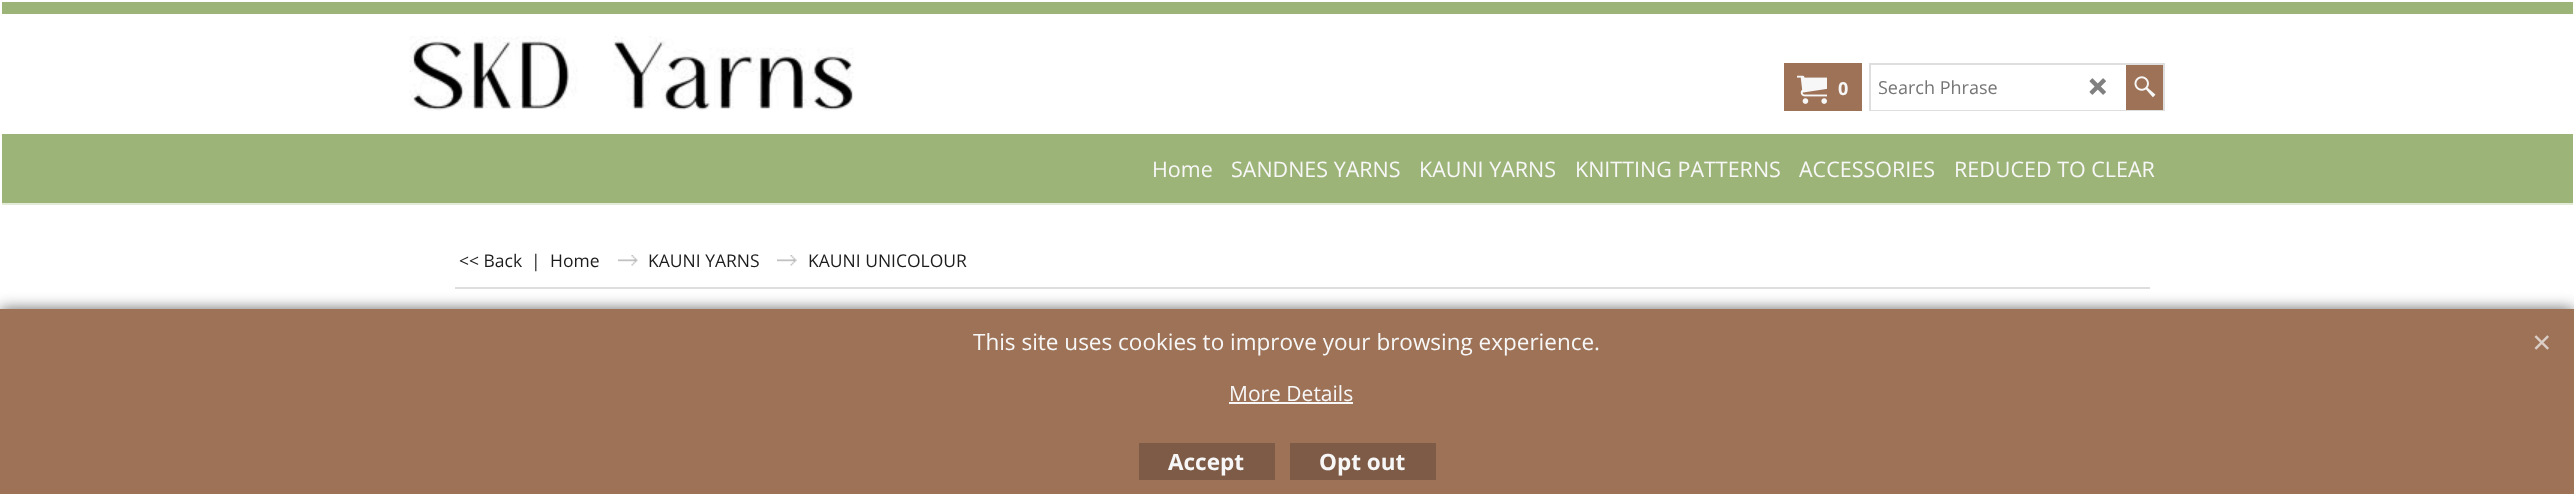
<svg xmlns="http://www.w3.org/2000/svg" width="2574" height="494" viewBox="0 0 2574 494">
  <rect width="100%" height="100%" fill="#fff"/>
  <path d="M2 2h2571v12H2z" fill="#9db478"/>
  <image x="409" y="36" width="445" height="75" href="img/1.png"/>
  <path d="M1784 63h78v48H1784z" fill="#9d7257"/>
  <image x="1797" y="75" width="30" height="29" href="img/2.png"/>
  <path d="M1869 63h296v48H1869z" fill="#dedede"/>
  <path d="M1871 65h255v45H1871z" fill="#fff"/>
  <image x="2089" y="78" width="17" height="17" href="img/3.png"/>
  <path d="M2126 65h37v45H2126z" fill="#9d7257"/>
  <image x="2134" y="76" width="22" height="22" href="img/4.png"/>
  <path d="M2 134h2571v69H2z" fill="#9db478"/>
  <path d="M2 203h2571v2H2z" fill="#e3ebd6"/>
  <path d="M455 287h1695v2H455z" fill="#dedede"/>
  <image x="618" y="255" width="20" height="11" href="img/5.png"/>
  <image x="777" y="255" width="20" height="11" href="img/5.png"/>
  <path d="M0 309h2574v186H0z" fill="#666" filter="blur(7.5px)"/>
  <path d="M0 309h2574v185H0z" fill="#9d7257"/>
  <path d="M1229 402h124v2H1229z" fill="#f7f7f7"/>
  <image x="2534" y="335" width="15" height="15" href="img/6.png"/>
  <path d="M1139 443h136v37H1139z" fill="#7e5b46"/>
  <path d="M1290 443h146v37H1290z" fill="#7e5b46"/>
  <text x="1838" y="95" font-family="Open Sans" font-size="18" font-weight="bold" fill="#f7f7f7">0</text>
  <text x="1878" y="94" font-family="Open Sans" font-size="18" fill="#757575">Search Phrase</text>
  <g font-family="Open Sans" font-size="21.5" fill="#f7f7f7">
    <text x="1152" y="177">Home</text>
    <text x="1231" y="177">SANDNES YARNS</text>
    <text x="1419" y="177">KAUNI YARNS</text>
    <text x="1575" y="177">KNITTING PATTERNS</text>
    <text x="1799" y="177">ACCESSORIES</text>
    <text x="1954" y="177">REDUCED TO CLEAR</text>
  </g>
  <g font-family="Open Sans" font-size="17.5" fill="#1c1c1c">
    <text x="459" y="267">&lt;&lt; Back</text>
    <text x="531" y="267">|</text>
    <text x="550" y="267">Home</text>
    <text x="648" y="267">KAUNI YARNS</text>
    <text x="808" y="267">KAUNI UNICOLOUR</text>
  </g>
  <text x="973" y="350" font-family="Open Sans" font-size="22.5" fill="#f7f7f7">This site uses cookies to improve your browsing experience.</text>
  <text x="1229" y="401" font-family="Open Sans" font-size="21" fill="#f7f7f7">More Details</text>
  <g font-family="Open Sans" font-size="22.5" font-weight="bold" fill="#f7f7f7">
    <text x="1168" y="470">Accept</text>
    <text x="1319" y="470">Opt out</text>
  </g>
</svg>
